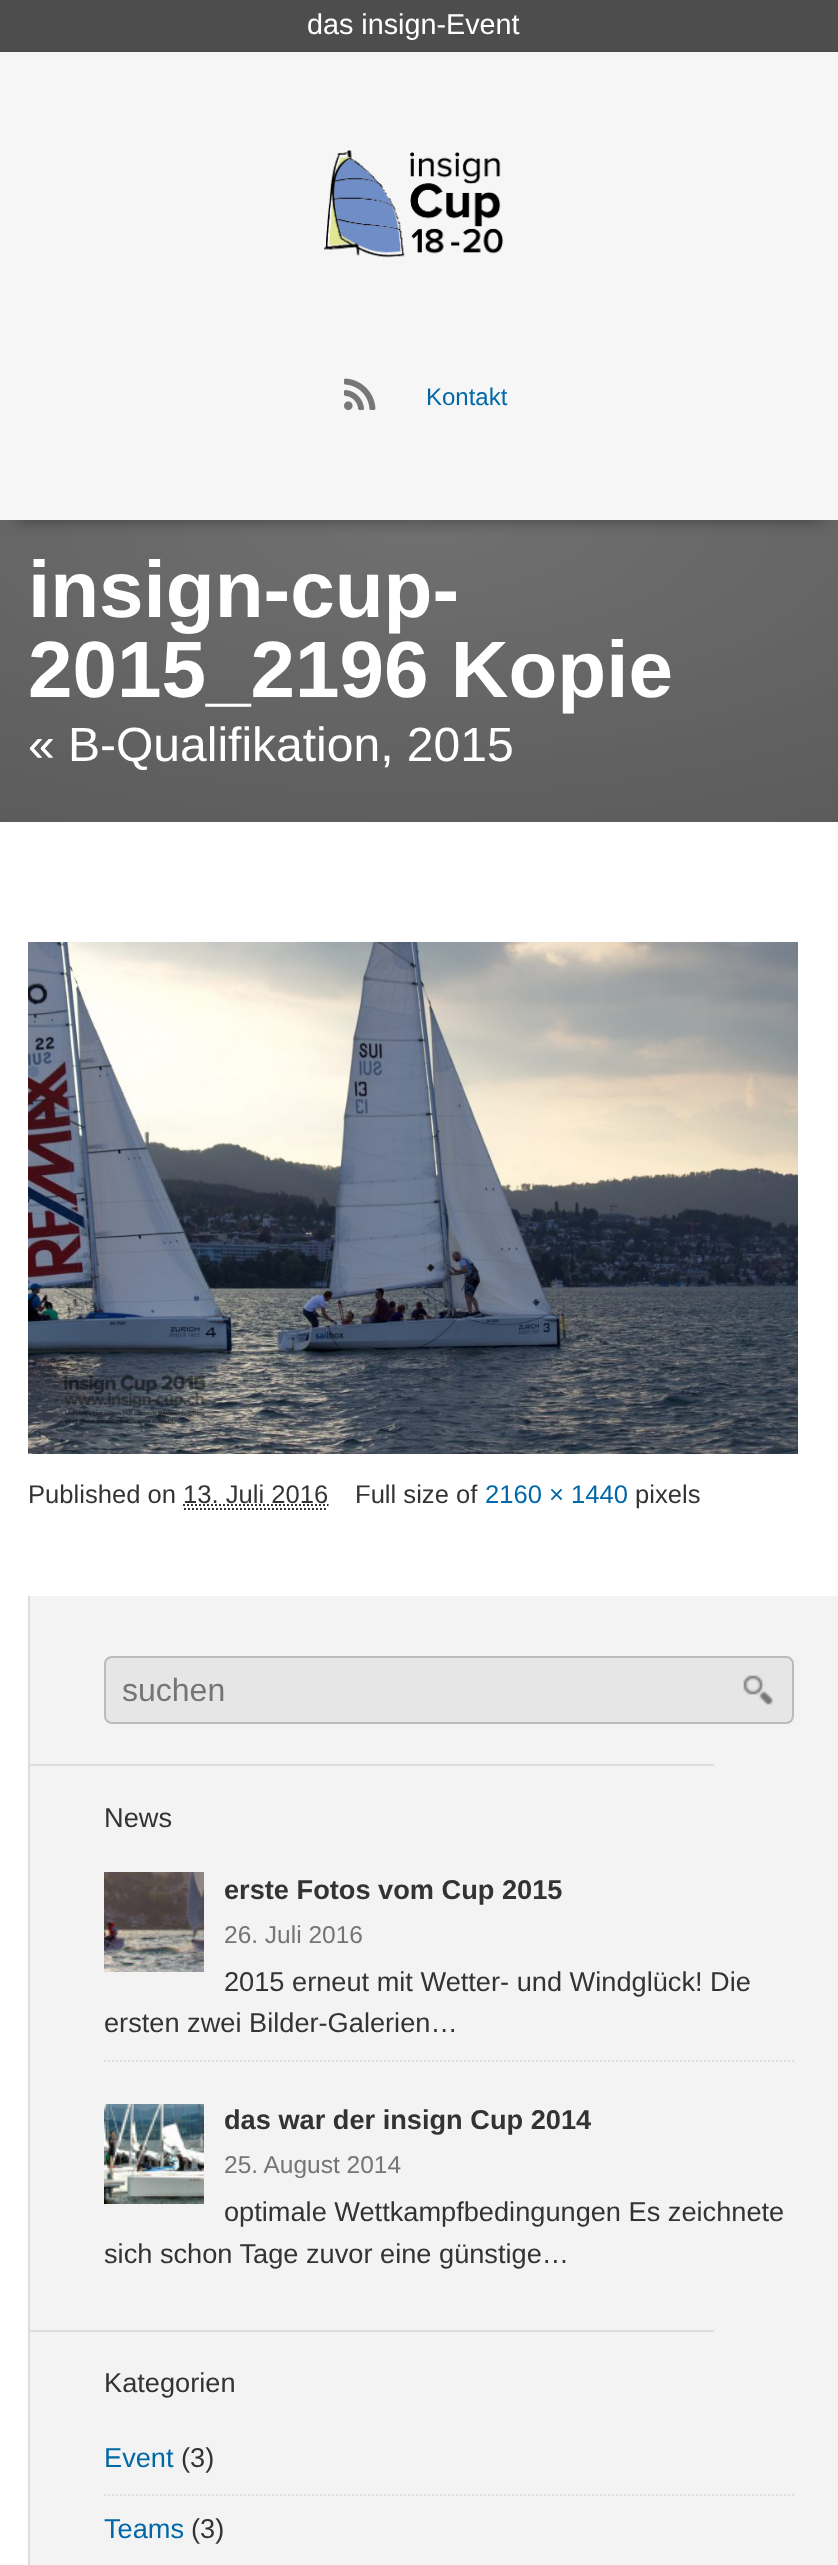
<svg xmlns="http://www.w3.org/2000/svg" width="838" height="2565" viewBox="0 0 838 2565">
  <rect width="100%" height="100%" fill="#fff"/>
  <path d="M0 0h838v52H0z" fill="#4d4d4d"/>
  <path d="M0 520h838v302H0z" fill="#4d4d4d"/>
  <image x="0" y="520" width="838" height="302" href="img/3.png"/>
  <path d="M16 84h806v436H16z" fill="#00000066" filter="blur(8px)"/>
  <path d="M0 52h838v468H0z" fill="#f6f6f6"/>
  <image x="324" y="150" width="180" height="108" href="img/1.png"/>
  <image x="344" y="378" width="32" height="32" href="img/2.png"/>
  <image x="28" y="942" width="770" height="512" href="img/4.png"/>
  <path d="M184 1509H328" fill="none" stroke="#333" stroke-width="2" stroke-dasharray="2 2"/>
  <path d="M183 1505H328.5" fill="none" stroke="#333" stroke-width="2" stroke-dasharray="2 2"/>
  <path d="M30 1596h808v969H30z" fill="#f3f3f3"/>
  <path d="M28 1596h2v969H28z" fill="#ddd"/>
  <image x="104" y="1656" width="690" height="68" href="img/5.png"/>
  <rect x="105" y="1657" width="688" height="66" rx="7" fill="none" stroke="#bbb" stroke-width="2"/>
  <image x="743" y="1675" width="30" height="30" href="img/6.png"/>
  <path d="M30 1764h684v2H30z" fill="#ddd"/>
  <path d="M104 2061H794" fill="none" stroke="#ddd" stroke-width="2" stroke-dasharray="2 2"/>
  <image x="104" y="1872" width="100" height="100" href="img/7.png"/>
  <image x="104" y="2104" width="100" height="100" href="img/8.png"/>
  <path d="M30 2330h684v2H30z" fill="#ddd"/>
  <path d="M104 2495H794" fill="none" stroke="#ddd" stroke-width="2" stroke-dasharray="2 2"/>
  <text x="307" y="34" font-family="Liberation Sans" font-size="28.75" fill="#fff">das insign-Event</text>
  <text x="426" y="405" font-family="Liberation Sans" font-size="24" fill="#0068a6">Kontakt</text>
  <g font-family="Liberation Sans" font-size="80" font-weight="bold" fill="#fff">
    <text x="28" y="617">insign-cup-</text>
    <text x="28" y="697">2015_2196 Kopie</text>
  </g>
  <text x="28" y="761" font-family="Liberation Sans" font-size="48" fill="#fff">« B-Qualifikation, 2015</text>
  <g font-family="Liberation Sans" font-size="25.6" fill="#333">
    <text x="28" y="1503">Published on 13. Juli 2016</text>
    <text x="355" y="1503">Full size of</text>
  </g>
  <text x="485" y="1503" font-family="Liberation Sans" font-size="25.6" fill="#0068a6">2160 × 1440</text>
  <text x="635" y="1503" font-family="Liberation Sans" font-size="25.6" fill="#333">pixels</text>
  <text x="122" y="1701" font-family="Liberation Sans" font-size="32" fill="#757575">suchen</text>
  <text x="104" y="1827" font-family="Liberation Sans" font-size="27.2" fill="#333">News</text>
  <text x="224" y="1899" font-family="Liberation Sans" font-size="27.2" font-weight="bold" fill="#333">erste Fotos vom Cup 2015</text>
  <text x="224" y="1943" font-family="Liberation Sans" font-size="24.5" fill="#757575">26. Juli 2016</text>
  <g font-family="Liberation Sans" font-size="27.2" fill="#333">
    <text x="224" y="1991">2015 erneut mit Wetter- und Windglück! Die</text>
    <text x="104" y="2032">ersten zwei Bilder-Galerien…</text>
  </g>
  <text x="224" y="2129" font-family="Liberation Sans" font-size="27.2" font-weight="bold" fill="#333">das war der insign Cup 2014</text>
  <text x="224" y="2173" font-family="Liberation Sans" font-size="24.5" fill="#757575">25. August 2014</text>
  <g font-family="Liberation Sans" font-size="27.2" fill="#333">
    <text x="224" y="2221">optimale Wettkampfbedingungen Es zeichnete</text>
    <text x="104" y="2263">sich schon Tage zuvor eine günstige…</text>
    <text x="104" y="2392">Kategorien</text>
  </g>
  <text x="104" y="2467" font-family="Liberation Sans" font-size="27.2" fill="#0068a6">Event</text>
  <text x="181" y="2467" font-family="Liberation Sans" font-size="27.2" fill="#333">(3)</text>
  <text x="104" y="2538" font-family="Liberation Sans" font-size="27.2" fill="#0068a6">Teams</text>
  <text x="191" y="2538" font-family="Liberation Sans" font-size="27.2" fill="#333">(3)</text>
</svg>
